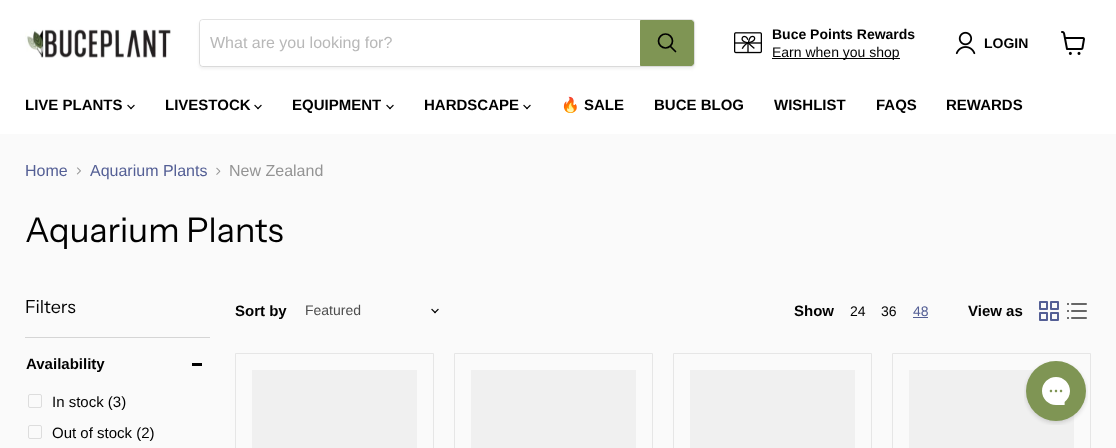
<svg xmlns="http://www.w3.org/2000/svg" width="1116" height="448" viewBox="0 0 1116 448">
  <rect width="100%" height="100%" fill="#fafafa"/>
  <path d="M0 0h1116v134H0z" fill="#fff"/>
  <image x="25" y="29" width="146" height="29" href="img/1.png"/>
  <rect x="199" y="21" width="496" height="48" rx="4" fill="#7d7d7d1c" filter="blur(1.5px)"/>
  <rect x="199.5" y="19.5" width="495" height="47" rx="3.5" fill="none" stroke="#7d7d7d33"/>
  <path d="M203 20H640V66H203C201.5 66 200 64.5 200 63V23C200 21.5 201.5 20 203 20Z" fill="#fff"/>
  <path d="M640.5 20.5H691C692.5 20.5 693.5 21.5 693.5 23V63C693.5 64.5 692.5 65.5 691 65.5H640.5Z" fill="#7f9554" stroke="#7f9554"/>
  <path d="M675.5 51.5L670.5 46.5" fill="none" stroke="#000" stroke-width="1.7" stroke-linecap="round"/>
  <circle cx="665.5" cy="41" r="7" fill="none" stroke="#000" stroke-width="1.7"/>
  <image x="734" y="32" width="28" height="22" href="img/2.png"/>
  <path d="M772 58h128v1H772z" fill="#000"/>
  <image x="955" y="31" width="21" height="24" href="img/3.png"/>
  <image x="1061" y="31" width="24" height="24" href="img/4.png"/>
  <image x="127" y="104" width="8" height="6" href="img/5.png"/>
  <image x="254" y="104" width="8" height="6" href="img/5.png"/>
  <image x="386" y="104" width="8" height="6" href="img/5.png"/>
  <image x="523" y="104" width="8" height="6" href="img/5.png"/>
  <image x="76" y="167" width="5" height="8" href="img/6.png"/>
  <image x="216" y="167" width="5" height="8" href="img/7.png"/>
  <path d="M25 337h185v1H25z" fill="#d5d5d5"/>
  <path d="M192 363h10v3H192z" fill="#000"/>
  <rect x="28.5" y="394.5" width="13" height="13" rx="1.5" fill="none" stroke="#ddd"/>
  <rect x="28.5" y="425.5" width="13" height="13" rx="1.5" fill="none" stroke="#ddd"/>
  <image x="431" y="308" width="8" height="6" href="img/8.png"/>
  <path d="M913 317h15v1H913z" fill="#545f95"/>
  <image x="1039" y="301" width="20" height="20" href="img/9.png"/>
  <image x="1067" y="303" width="20" height="16" href="img/10.png"/>
  <path d="M235.5 353.5h198v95H235.5z" fill="none" stroke="#e6e6e6"/>
  <path d="M252 370h165v78H252z" fill="#f0f0f0"/>
  <path d="M454.5 353.5h198v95H454.5z" fill="none" stroke="#e6e6e6"/>
  <path d="M471 370h165v78H471z" fill="#f0f0f0"/>
  <path d="M673.5 353.5h198v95H673.5z" fill="none" stroke="#e6e6e6"/>
  <path d="M690 370h165v78H690z" fill="#f0f0f0"/>
  <path d="M892.5 353.5h198v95H892.5z" fill="none" stroke="#e6e6e6"/>
  <path d="M909 370h165v78H909z" fill="#f0f0f0"/>
  <image x="1024" y="361" width="64" height="64" href="img/11.png"/>
  <text x="210" y="48" font-family="Liberation Sans" font-size="16" fill="#b8b8b8">What are you looking for?</text>
  <text x="772" y="39" font-family="Liberation Sans" font-size="14" font-weight="bold" fill="#000">Buce Points Rewards</text>
  <text x="772" y="57" font-family="Liberation Sans" font-size="14" fill="#000">Earn when you shop</text>
  <text x="984" y="48" font-family="Liberation Sans" font-size="14" font-weight="bold" fill="#000">LOGIN</text>
  <g font-family="Liberation Sans" font-size="15" font-weight="bold" fill="#000">
    <text x="25" y="110">LIVE PLANTS</text>
    <text x="165" y="110">LIVESTOCK</text>
    <text x="292" y="110">EQUIPMENT</text>
    <text x="424" y="110">HARDSCAPE</text>
  </g>
  <text x="561" y="110" font-family="Noto Color Emoji" font-size="15" font-weight="bold" fill="#000">🔥</text>
  <g font-family="Liberation Sans" font-size="15" font-weight="bold" fill="#000">
    <text x="584" y="110">SALE</text>
    <text x="654" y="110">BUCE BLOG</text>
    <text x="774" y="110">WISHLIST</text>
    <text x="876" y="110">FAQS</text>
    <text x="946" y="110">REWARDS</text>
  </g>
  <g font-family="Liberation Sans" font-size="16" fill="#545f95">
    <text x="25" y="176">Home</text>
    <text x="90" y="176">Aquarium Plants</text>
  </g>
  <text x="229" y="176" font-family="Liberation Sans" font-size="16" fill="#949494">New Zealand</text>
  <text x="25" y="242" font-family="Instrument Sans" font-size="34" fill="#000">Aquarium Plants</text>
  <text x="25" y="313" font-family="Instrument Sans" font-size="18" fill="#000">Filters</text>
  <text x="26" y="369" font-family="Liberation Sans" font-size="15" font-weight="bold" fill="#000">Availability</text>
  <g font-family="Liberation Sans" font-size="15" fill="#000">
    <text x="52" y="407">In stock (3)</text>
    <text x="52" y="438">Out of stock (2)</text>
  </g>
  <text x="235" y="316" font-family="Liberation Sans" font-size="15" font-weight="bold" fill="#000">Sort by</text>
  <text x="305" y="315" font-family="Liberation Sans" font-size="14" fill="#4d4d4d">Featured</text>
  <text x="794" y="316" font-family="Liberation Sans" font-size="15" font-weight="bold" fill="#000">Show</text>
  <g font-family="Liberation Sans" font-size="14" fill="#000">
    <text x="850" y="316">24</text>
    <text x="881" y="316">36</text>
  </g>
  <text x="913" y="316" font-family="Liberation Sans" font-size="14" fill="#545f95">48</text>
  <text x="968" y="316" font-family="Liberation Sans" font-size="15" font-weight="bold" fill="#000">View as</text>
</svg>
